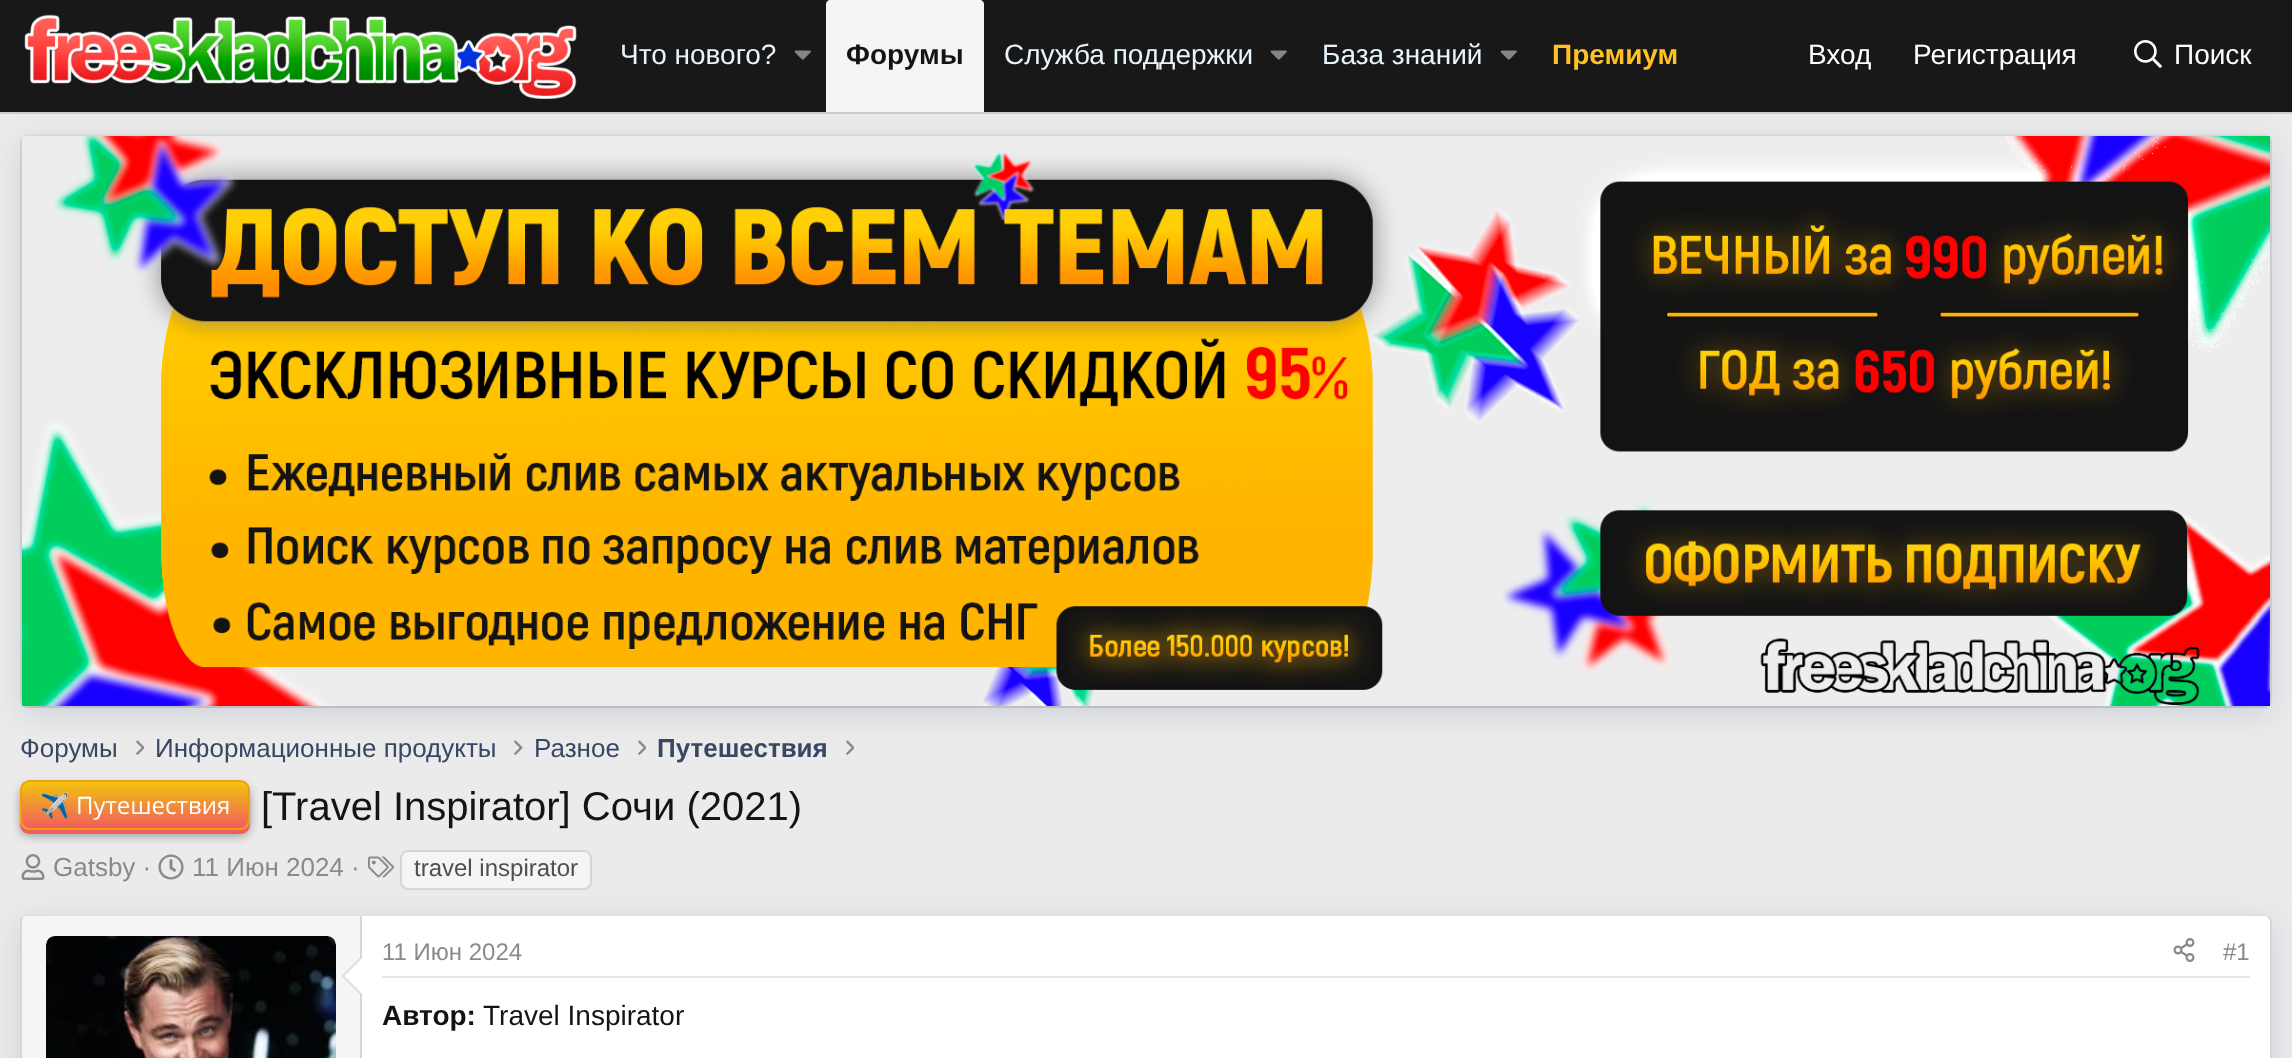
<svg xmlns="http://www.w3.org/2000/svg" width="2292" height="1058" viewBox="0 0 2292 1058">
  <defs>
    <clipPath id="clip1"><rect x="20" y="780" width="230" height="50" rx="10"/></clipPath>
    <linearGradient id="g1" gradientUnits="userSpaceOnUse" x1="135" y1="828" x2="135" y2="782"><stop offset="0" stop-color="#f15d5d"/><stop offset="1" stop-color="#f1c40f"/></linearGradient>
  </defs>
  <rect width="100%" height="100%" fill="#ebebeb"/>
  <path d="M0 112h2292v2H0z" fill="#ccc"/>
  <path d="M23 137C24.5 135.5 26 135 28 135H2264C2266 135 2267.5 135.5 2269 137" fill="none" stroke="#e0e0e0" stroke-width="2"/>
  <path d="M2269 137C2270.5 138.5 2271 140 2271 142V700C2271 702 2270.5 703.5 2269 705" fill="none" stroke="#d6d6d6" stroke-width="2"/>
  <path d="M2269 705C2267.5 706.5 2266 707 2264 707H28C26 707 24.5 706.5 23 705" fill="none" stroke="#ccc" stroke-width="2"/>
  <path d="M23 705C21.5 703.5 21 702 21 700V142C21 140 21.5 138.5 23 137" fill="none" stroke="#d6d6d6" stroke-width="2"/>
  <path d="M22 144h2248v570H22z" fill="#586a9933" filter="blur(15px)"/>
  <path d="M0 0h2292v112H0z" fill="#181818"/>
  <image x="24" y="14" width="553" height="86" href="img/1.png"/>
  <image x="794" y="50" width="17" height="10" href="img/2.png"/>
  <path d="M830 0H980C982 0 984 2 984 4V112H826V4C826 2 828 0 830 0Z" fill="#f5f5f5"/>
  <image x="1270" y="50" width="17" height="10" href="img/2.png"/>
  <image x="1500" y="50" width="17" height="10" href="img/2.png"/>
  <image x="2134" y="40" width="28" height="28" href="img/3.png"/>
  <image x="22" y="136" width="2248" height="570" href="img/4.png"/>
  <image x="136" y="740" width="8" height="15" href="img/5.png"/>
  <image x="514" y="740" width="9" height="15" href="img/6.png"/>
  <image x="638" y="740" width="8" height="15" href="img/5.png"/>
  <image x="846" y="740" width="8" height="15" href="img/5.png"/>
  <rect x="20" y="786" width="230" height="50" rx="10" fill="#999" filter="blur(5px)"/>
  <path d="M20 820V824C20 830 24 834 30 834H240C246 834 250 830 250 824V820C250 826 246 830 240 830H30C24 830 20 826 20 820Z" fill="#f15d5d"/>
  <g clip-path="url(#clip1)">
    <path d="M20 782h230v46H20z" fill="url(#g1)"/>
  </g>
  <path d="M30 784H240C244 784 248 788 248 792V790C248 786 244 782 240 782H30C26 782 22 786 22 790V792C22 788 26 784 30 784Z" fill="#f1c40f"/>
  <rect x="21" y="781" width="228" height="48" rx="9" fill="none" stroke="#f19e0f" stroke-width="2"/>
  <rect x="401" y="851" width="190" height="38" rx="7" fill="#f5f5f5" stroke="#d6d6d6" stroke-width="2"/>
  <rect x="20" y="922" width="2252" height="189" rx="8" fill="#586a9933" filter="blur(15px)"/>
  <image x="21" y="854" width="24" height="26" href="img/7.png"/>
  <image x="158" y="854" width="26" height="26" href="img/8.png"/>
  <image x="368" y="856" width="26" height="22" href="img/9.png"/>
  <rect x="20" y="914" width="2252" height="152" rx="8" fill="#fff"/>
  <path d="M23 917C24.5 915.5 26 915 28 915H2264C2266 915 2267.5 915.5 2269 917" fill="none" stroke="#e0e0e0" stroke-width="2"/>
  <path d="M2269 917C2270.5 918.5 2271 920 2271 922V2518C2271 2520 2270.5 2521.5 2269 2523" fill="none" stroke="#d6d6d6" stroke-width="2"/>
  <path d="M23 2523C21.5 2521.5 21 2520 21 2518V922C21 920 21.5 918.5 23 917" fill="none" stroke="#d6d6d6" stroke-width="2"/>
  <path d="M28 916H362V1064H28C24.5 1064 22 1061.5 22 1058V922C22 918.5 24.5 916 28 916Z" fill="#f5f5f5"/>
  <path d="M360 916h2v142H360z" fill="#d6d6d6"/>
  <rect x="46" y="936" width="290" height="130" rx="8" fill="#fff"/>
  <image x="46" y="936" width="290" height="122" href="img/10.png"/>
  <path d="M362 956V996L342 976Z" fill="#d6d6d6"/>
  <path d="M362 958V994L344 976Z" fill="#fff"/>
  <path d="M382 976h1868v2H382z" fill="#e5e5e5"/>
  <image x="2173" y="938" width="22" height="24" href="img/11.png"/>
  <text x="620" y="64" font-family="Liberation Sans" font-size="28" fill="#e8f4fc">Что нового?</text>
  <text x="846" y="64" font-family="Liberation Sans" font-size="28" font-weight="bold" fill="#141414">Форумы</text>
  <g font-family="Liberation Sans" font-size="28" fill="#e8f4fc">
    <text x="1004" y="64">Служба поддержки</text>
    <text x="1322" y="64">База знаний</text>
  </g>
  <text x="1552" y="64" font-family="Liberation Sans" font-size="28" font-weight="bold" fill="#ffc123">Премиум</text>
  <g font-family="Liberation Sans" font-size="28" fill="#fff">
    <text x="1808" y="64">Вход</text>
    <text x="1913" y="64">Регистрация</text>
    <text x="2174" y="64">Поиск</text>
  </g>
  <g font-family="Liberation Sans" font-size="26" fill="#384764">
    <text x="20" y="757">Форумы</text>
    <text x="155" y="757">Информационные продукты</text>
    <text x="534" y="757">Разное</text>
  </g>
  <text x="657" y="757" font-family="Liberation Sans" font-size="26" font-weight="bold" fill="#384764">Путешествия</text>
  <text x="40" y="814" font-family="Noto Color Emoji" font-size="24" fill="#fff">✈️</text>
  <text x="76" y="814" font-family="Open Sans" font-size="24" fill="#fff">Путешествия</text>
  <text x="261" y="820" font-family="Liberation Sans" font-size="40" fill="#141414">[Travel Inspirator] Сочи (2021)</text>
  <g font-family="Liberation Sans" font-size="26" fill="#8a8a8a">
    <text x="53" y="876">Gatsby ·</text>
    <text x="192" y="876">11 Июн 2024 ·</text>
  </g>
  <text x="414" y="876" font-family="Liberation Sans" font-size="24" fill="#4f4f4f">travel inspirator</text>
  <g font-family="Liberation Sans" font-size="24" fill="#8a8a8a">
    <text x="382" y="960">11 Июн 2024</text>
    <text x="2223" y="960">#1</text>
  </g>
  <text x="382" y="1025" font-family="Liberation Sans" font-size="28" font-weight="bold" fill="#141414">Автор:</text>
  <text x="483" y="1025" font-family="Liberation Sans" font-size="28" fill="#141414">Travel Inspirator</text>
</svg>
